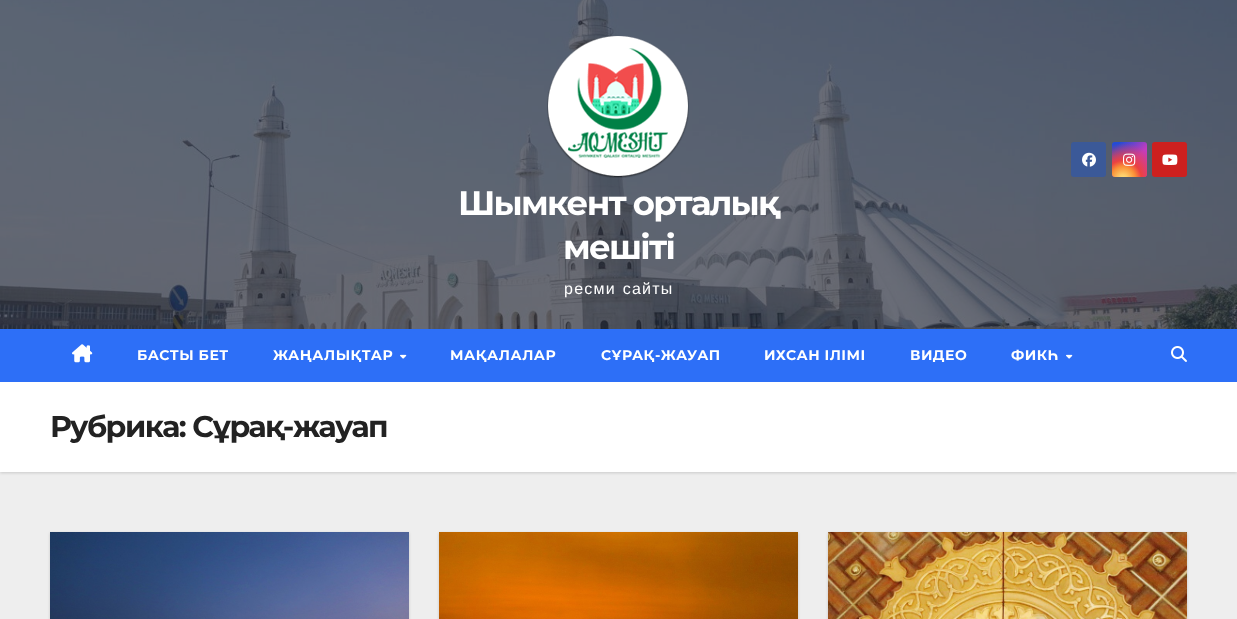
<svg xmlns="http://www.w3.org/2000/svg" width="1237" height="619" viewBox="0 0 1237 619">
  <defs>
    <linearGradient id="g1" gradientUnits="userSpaceOnUse" x1="1112" y1="142" x2="1147" y2="177"><stop offset="0.12" stop-color="#234bd7"/><stop offset="0.58" stop-color="#c33cbe"/></linearGradient>
    <radialGradient id="g2" gradientUnits="userSpaceOnUse" cx="1123" cy="179" r="44"><stop offset="0" stop-color="#ffe17d"/><stop offset="0.1" stop-color="#ffcd69"/><stop offset="0.28" stop-color="#fa9137"/><stop offset="0.42" stop-color="#eb4141"/><stop offset="0.82" stop-color="#eb4141" stop-opacity="0"/></radialGradient>
  </defs>
  <rect width="100%" height="100%" fill="#eee"/>
  <image x="0" y="0" width="1237" height="329" href="img/1.png"/>
  <rect x="1071" y="142" width="35" height="35" rx="3" fill="#3b5998"/>
  <image x="1082" y="152" width="14" height="15" href="img/2.png"/>
  <rect x="1112" y="142" width="35" height="35" rx="3" fill="url(#g1)"/>
  <rect x="1112" y="142" width="35" height="35" rx="3" fill="url(#g2)"/>
  <image x="1123" y="153" width="13" height="13" href="img/3.png"/>
  <rect x="1152" y="142" width="35" height="35" rx="3" fill="#cd201f"/>
  <image x="1162" y="154" width="16" height="11" href="img/4.png"/>
  <image x="547" y="36" width="142" height="142" href="img/5.png"/>
  <path d="M0 383h1237v90H0z" fill="#00000026" filter="blur(1.5px)"/>
  <path d="M0 329h1237v53H0z" fill="#2d6ff7"/>
  <image x="72" y="344" width="21" height="19" href="img/6.png"/>
  <image x="400" y="354" width="7" height="5" href="img/7.png"/>
  <image x="1066" y="354" width="7" height="5" href="img/7.png"/>
  <image x="1171" y="346" width="16" height="16" href="img/8.png"/>
  <path d="M0 382h1237v90H0z" fill="#fff"/>
  <path d="M50 533h359v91H50z" fill="#00000026" filter="blur(1.5px)"/>
  <image x="50" y="532" width="359" height="87" href="img/9.png"/>
  <path d="M439 533h359v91H439z" fill="#00000026" filter="blur(1.5px)"/>
  <image x="439" y="532" width="359" height="87" href="img/10.png"/>
  <path d="M828 533h359v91H828z" fill="#00000026" filter="blur(1.5px)"/>
  <image x="828" y="532" width="359" height="87" href="img/11.png"/>
  <g font-family="Montserrat" font-size="34" font-weight="bold" letter-spacing="-1.75" fill="#fff">
    <text x="458" y="215">Шымкент орталық</text>
    <text x="563" y="259">мешіті</text>
  </g>
  <text x="564" y="294" word-spacing="1" font-family="Liberation Sans" font-size="16" letter-spacing="1.25" fill="#fff">ресми сайты</text>
  <g font-family="Montserrat" font-size="14" font-weight="bold" letter-spacing="0.5" fill="#fff">
    <text x="137" y="360">БАСТЫ БЕТ</text>
    <text x="273" y="360">ЖАҢАЛЫҚТАР</text>
    <text x="450" y="360">МАҚАЛАЛАР</text>
    <text x="601" y="360">СҰРАҚ-ЖАУАП</text>
    <text x="764" y="360">ИХСАН ІЛІМІ</text>
    <text x="910" y="360">ВИДЕО</text>
    <text x="1011" y="360">ФИКҺ</text>
  </g>
  <text x="50" y="437" font-family="Montserrat" font-size="30" font-weight="bold" letter-spacing="-1.5" fill="#222">Рубрика: Сұрақ-жауап</text>
</svg>
